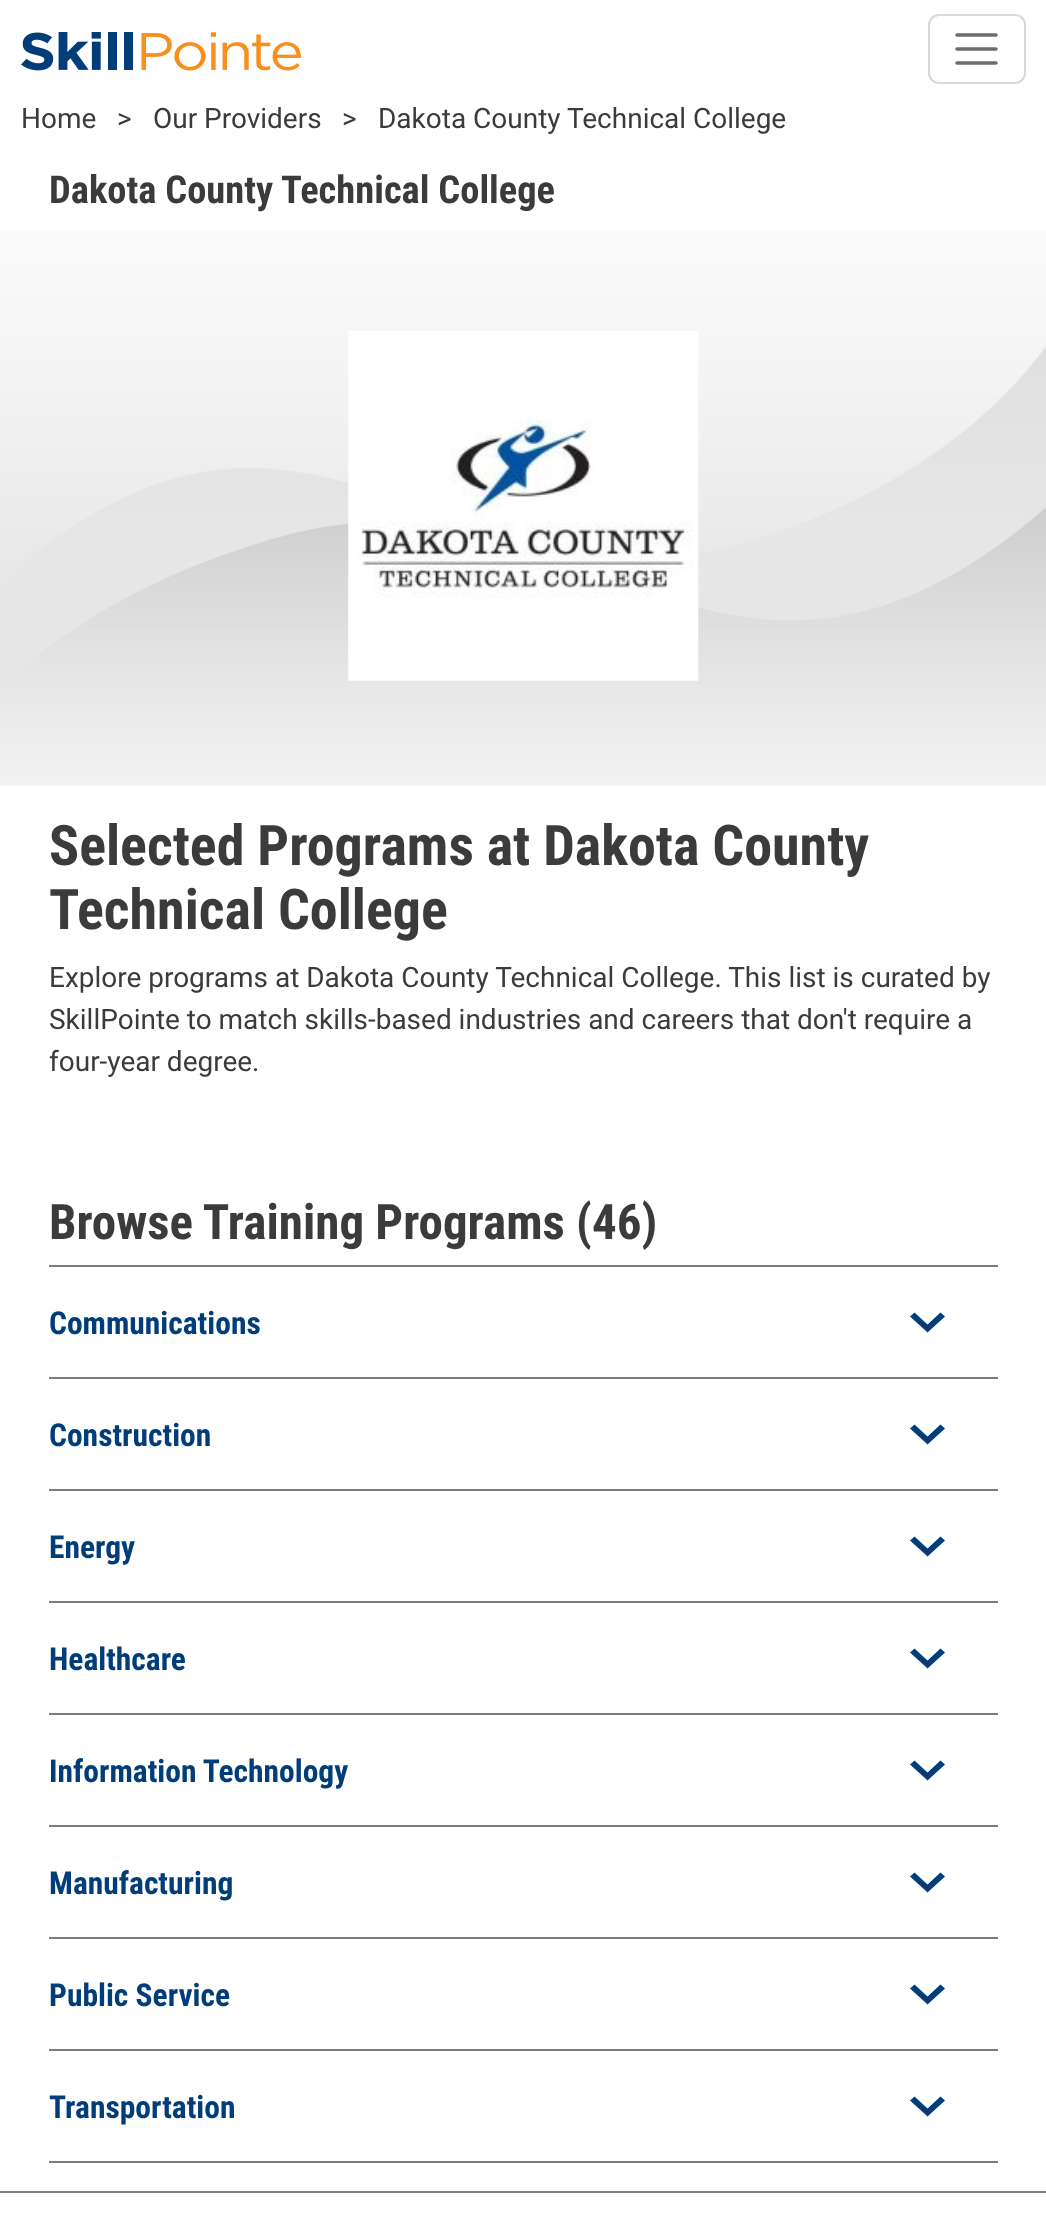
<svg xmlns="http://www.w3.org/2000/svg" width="1046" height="2221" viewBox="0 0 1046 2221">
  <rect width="100%" height="100%" fill="#fff"/>
  <image x="21" y="32" width="280" height="39" href="img/1.png"/>
  <rect x="929" y="15" width="96" height="68" rx="10" fill="none" stroke="#d9d9d9" stroke-width="2"/>
  <path d="M957 35H996M957 49H996M957 63H996" fill="none" stroke="#6c6c6c" stroke-width="3.5" stroke-linecap="round"/>
  <image x="0" y="231" width="1046" height="555" href="img/2.png"/>
  <image x="348" y="331" width="351" height="350" href="img/3.png"/>
  <path d="M49 1265h949v2H49z" fill="#7d7d7d"/>
  <path d="M49 1377h949v2H49z" fill="#7d7d7d"/>
  <path d="M925.5 1330.5L927.5 1332.5L945 1316.5L940.5 1312.5L927.5 1324.5L914.5 1312.5L910 1316.5Z" fill="#003d79"/>
  <path d="M49 1489h949v2H49z" fill="#7d7d7d"/>
  <path d="M925.5 1442.5L927.5 1444.5L945 1428.5L940.5 1424.5L927.5 1436.5L914.5 1424.5L910 1428.5Z" fill="#003d79"/>
  <path d="M49 1601h949v2H49z" fill="#7d7d7d"/>
  <path d="M925.5 1554.5L927.5 1556.5L945 1540.5L940.5 1536.5L927.5 1548.5L914.5 1536.5L910 1540.5Z" fill="#003d79"/>
  <path d="M49 1713h949v2H49z" fill="#7d7d7d"/>
  <path d="M925.5 1666.5L927.5 1668.5L945 1652.5L940.5 1648.5L927.5 1660.5L914.5 1648.5L910 1652.5Z" fill="#003d79"/>
  <path d="M49 1825h949v2H49z" fill="#7d7d7d"/>
  <path d="M925.5 1778.5L927.5 1780.5L945 1764.5L940.5 1760.5L927.5 1772.5L914.5 1760.5L910 1764.5Z" fill="#003d79"/>
  <path d="M49 1937h949v2H49z" fill="#7d7d7d"/>
  <path d="M925.5 1890.5L927.5 1892.5L945 1876.5L940.5 1872.5L927.5 1884.5L914.5 1872.5L910 1876.5Z" fill="#003d79"/>
  <path d="M49 2049h949v2H49z" fill="#7d7d7d"/>
  <path d="M925.5 2002.5L927.5 2004.5L945 1988.5L940.5 1984.5L927.5 1996.5L914.5 1984.5L910 1988.5Z" fill="#003d79"/>
  <path d="M49 2161h949v2H49z" fill="#7d7d7d"/>
  <path d="M925.5 2114.5L927.5 2116.5L945 2100.5L940.5 2096.5L927.5 2108.5L914.5 2096.5L910 2100.5Z" fill="#003d79"/>
  <path d="M0 2191h1046v2H0z" fill="#7d7d7d"/>
  <g font-family="Roboto" font-size="28" fill="#3b3b3b">
    <text x="21" y="128">Home</text>
    <text x="117" y="128">&gt;</text>
    <text x="153" y="128">Our Providers</text>
    <text x="342" y="128">&gt;</text>
    <text x="378" y="128">Dakota County Technical College</text>
  </g>
  <text x="49" y="203" font-family="Roboto Condensed" font-size="38.5" font-weight="bold" fill="#3b3b3b">Dakota County Technical College</text>
  <g font-family="Roboto Condensed" font-size="56" font-weight="bold" fill="#3b3b3b">
    <text x="49" y="865">Selected Programs at Dakota County</text>
    <text x="49" y="929">Technical College</text>
  </g>
  <g font-family="Roboto" font-size="28" fill="#3b3b3b">
    <text x="49" y="987">Explore programs at Dakota County Technical College. This list is curated by</text>
    <text x="49" y="1029">SkillPointe to match skills-based industries and careers that don't require a</text>
    <text x="49" y="1071">four-year degree.</text>
  </g>
  <text x="49" y="1239" font-family="Roboto Condensed" font-size="49" font-weight="bold" fill="#3b3b3b">Browse Training Programs (46)</text>
  <g font-family="Roboto Condensed" font-size="31.5" font-weight="bold" fill="#003d79">
    <text x="49" y="1334">Communications</text>
    <text x="49" y="1446">Construction</text>
    <text x="49" y="1558">Energy</text>
    <text x="49" y="1670">Healthcare</text>
    <text x="49" y="1782">Information Technology</text>
    <text x="49" y="1894">Manufacturing</text>
    <text x="49" y="2006">Public Service</text>
    <text x="49" y="2118">Transportation</text>
  </g>
</svg>
